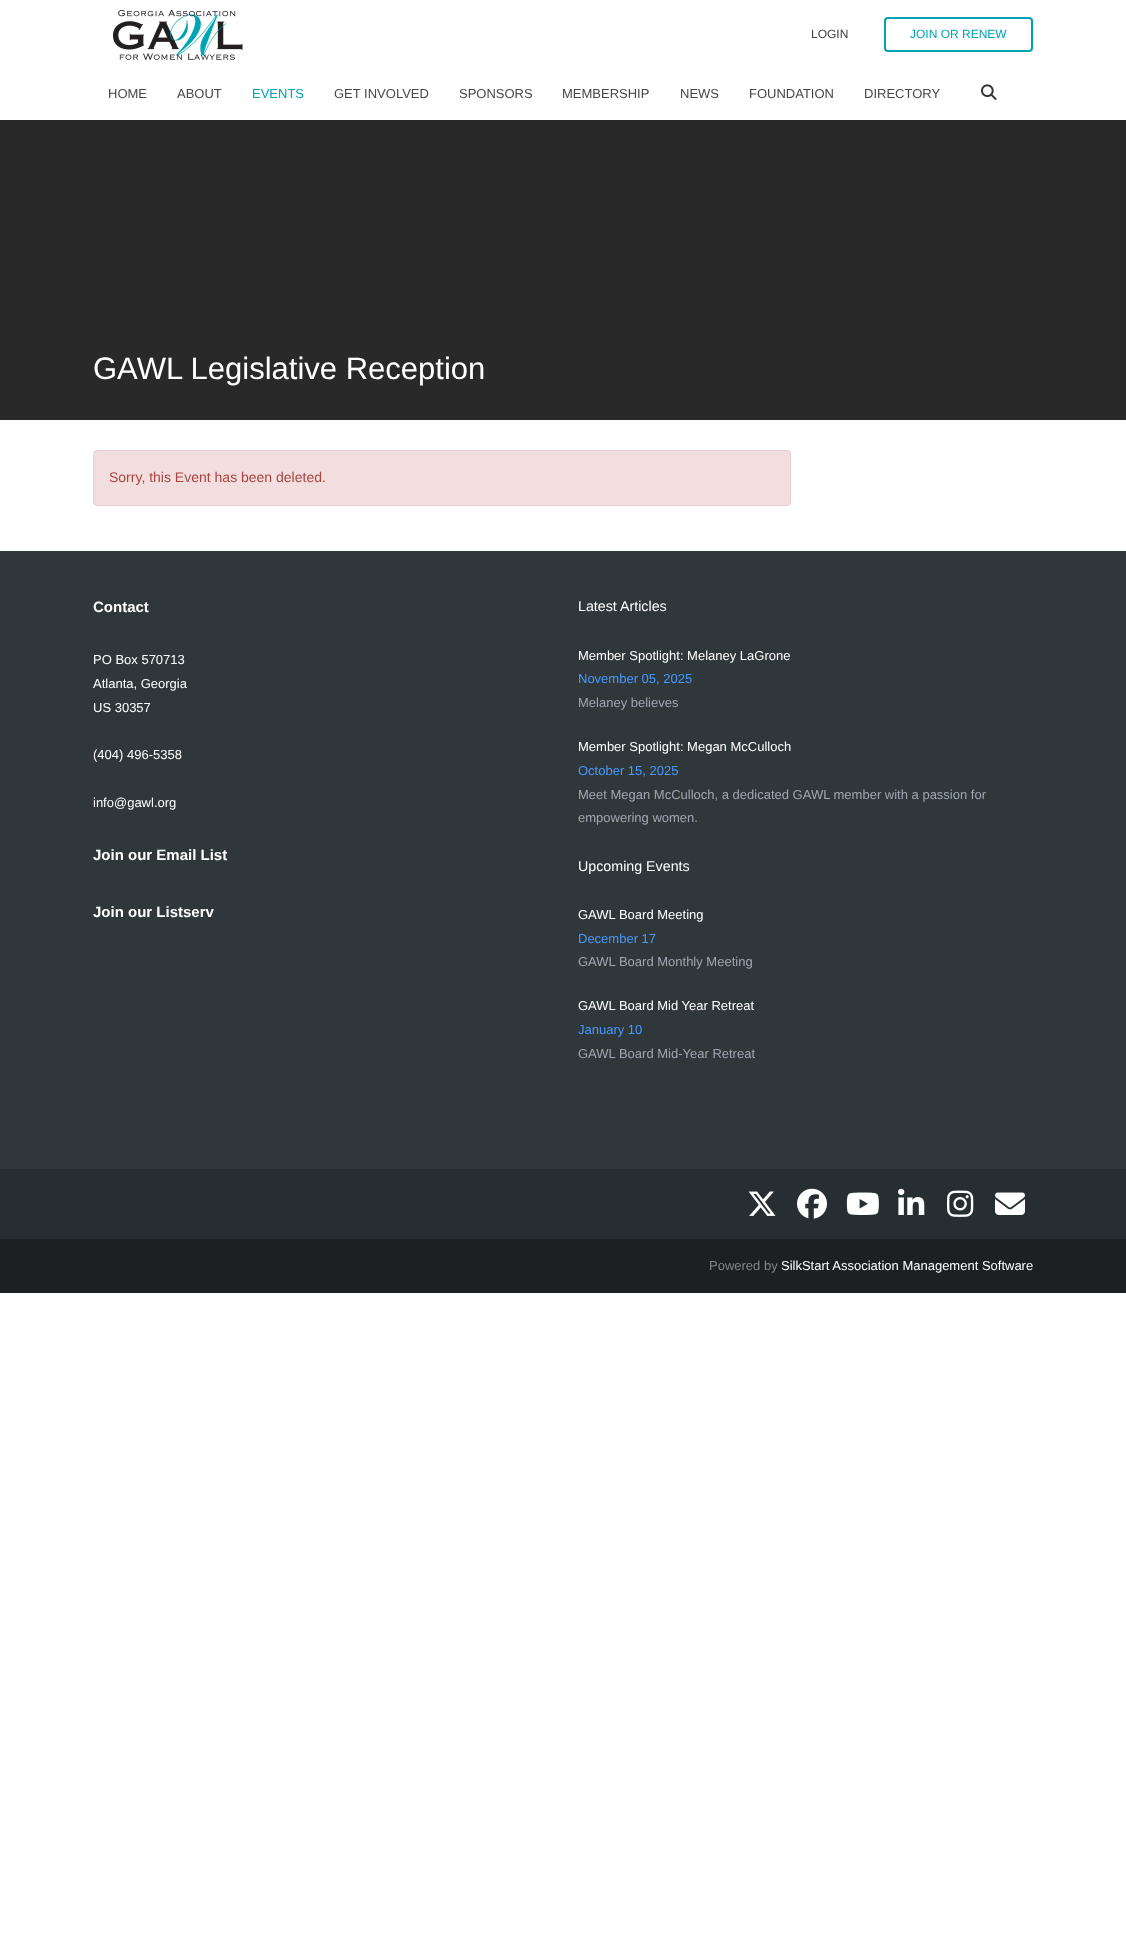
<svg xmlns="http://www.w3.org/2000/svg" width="1126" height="1943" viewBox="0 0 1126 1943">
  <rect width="100%" height="100%" fill="#fff"/>
  <image x="113" y="10" width="130" height="50" href="img/1.png"/>
  <rect x="885" y="18" width="147" height="33" rx="3" fill="none" stroke="#00a3b3" stroke-width="2"/>
  <image x="981" y="84" width="16" height="16" href="img/2.png"/>
  <path d="M0 120h1126v300H0z" fill="#292929"/>
  <rect x="93.5" y="450.5" width="697" height="55" rx="3.5" fill="#f2dede" stroke="#ebccd1"/>
  <path d="M0 551h1126v618H0z" fill="#30373a"/>
  <path d="M0 1169h1126v70H0z" fill="#272e31"/>
  <image x="748" y="1191" width="28" height="25" href="img/3.png"/>
  <image x="797" y="1188" width="30" height="31" href="img/4.png"/>
  <image x="846" y="1192" width="33" height="23" href="img/5.png"/>
  <image x="898" y="1188" width="27" height="27" href="img/6.png"/>
  <image x="947" y="1190" width="27" height="27" href="img/7.png"/>
  <image x="995" y="1192" width="30" height="23" href="img/8.png"/>
  <path d="M0 1239h1126v54H0z" fill="#1d1f20"/>
  <text x="811" y="38" font-family="Liberation Sans" font-size="12" fill="#404040">LOGIN</text>
  <text x="910" y="38" font-family="Liberation Sans" font-size="12" fill="#00a3b3">JOIN OR RENEW</text>
  <g font-family="Liberation Sans" font-size="13" fill="#474747">
    <text x="108" y="98">HOME</text>
    <text x="177" y="98">ABOUT</text>
  </g>
  <text x="252" y="98" font-family="Liberation Sans" font-size="13" fill="#00a3b3">EVENTS</text>
  <g font-family="Liberation Sans" font-size="13" fill="#474747">
    <text x="334" y="98">GET INVOLVED</text>
    <text x="459" y="98">SPONSORS</text>
    <text x="562" y="98">MEMBERSHIP</text>
    <text x="680" y="98">NEWS</text>
    <text x="749" y="98">FOUNDATION</text>
    <text x="864" y="98">DIRECTORY</text>
  </g>
  <text x="93" y="379" font-family="Liberation Sans" font-size="31" fill="#fff">GAWL Legislative Reception</text>
  <text x="109" y="482" font-family="Liberation Sans" font-size="14" fill="#a94442">Sorry, this Event has been deleted.</text>
  <text x="93" y="612" font-family="Liberation Sans" font-size="15" font-weight="bold" fill="#fff">Contact</text>
  <g font-family="Liberation Sans" font-size="13" fill="#fff">
    <text x="93" y="664">PO Box 570713</text>
    <text x="93" y="688">Atlanta, Georgia</text>
    <text x="93" y="712">US 30357</text>
    <text x="93" y="759">(404) 496-5358</text>
    <text x="93" y="807">info@gawl.org</text>
  </g>
  <g font-family="Liberation Sans" font-size="15" font-weight="bold" fill="#fff">
    <text x="93" y="860">Join our Email List</text>
    <text x="93" y="917">Join our Listserv</text>
  </g>
  <text x="578" y="611" font-family="Liberation Sans" font-size="14.25" fill="#fff">Latest Articles</text>
  <text x="578" y="660" font-family="Liberation Sans" font-size="13" fill="#fff">Member Spotlight: Melaney LaGrone</text>
  <text x="578" y="683" font-family="Liberation Sans" font-size="13" fill="#479aff">November 05, 2025</text>
  <text x="578" y="707" font-family="Liberation Sans" font-size="13" fill="#9ea7b3">Melaney believes</text>
  <text x="578" y="751" font-family="Liberation Sans" font-size="13" fill="#fff">Member Spotlight: Megan McCulloch</text>
  <text x="578" y="775" font-family="Liberation Sans" font-size="13" fill="#479aff">October 15, 2025</text>
  <g font-family="Liberation Sans" font-size="13" fill="#9ea7b3">
    <text x="578" y="799">Meet Megan McCulloch, a dedicated GAWL member with a passion for</text>
    <text x="578" y="822">empowering women.</text>
  </g>
  <text x="578" y="871" font-family="Liberation Sans" font-size="14.25" fill="#fff">Upcoming Events</text>
  <text x="578" y="919" font-family="Liberation Sans" font-size="13" fill="#fff">GAWL Board Meeting</text>
  <text x="578" y="943" font-family="Liberation Sans" font-size="13" fill="#479aff">December 17</text>
  <text x="578" y="966" font-family="Liberation Sans" font-size="13" fill="#9ea7b3">GAWL Board Monthly Meeting</text>
  <text x="578" y="1010" font-family="Liberation Sans" font-size="13" fill="#fff">GAWL Board Mid Year Retreat</text>
  <text x="578" y="1034" font-family="Liberation Sans" font-size="13" fill="#479aff">January 10</text>
  <text x="578" y="1058" font-family="Liberation Sans" font-size="13" fill="#9ea7b3">GAWL Board Mid-Year Retreat</text>
  <text x="709" y="1270" font-family="Liberation Sans" font-size="13" fill="#868686">Powered by</text>
  <text x="781" y="1270" font-family="Liberation Sans" font-size="13" fill="#fff">SilkStart Association Management Software</text>
</svg>
